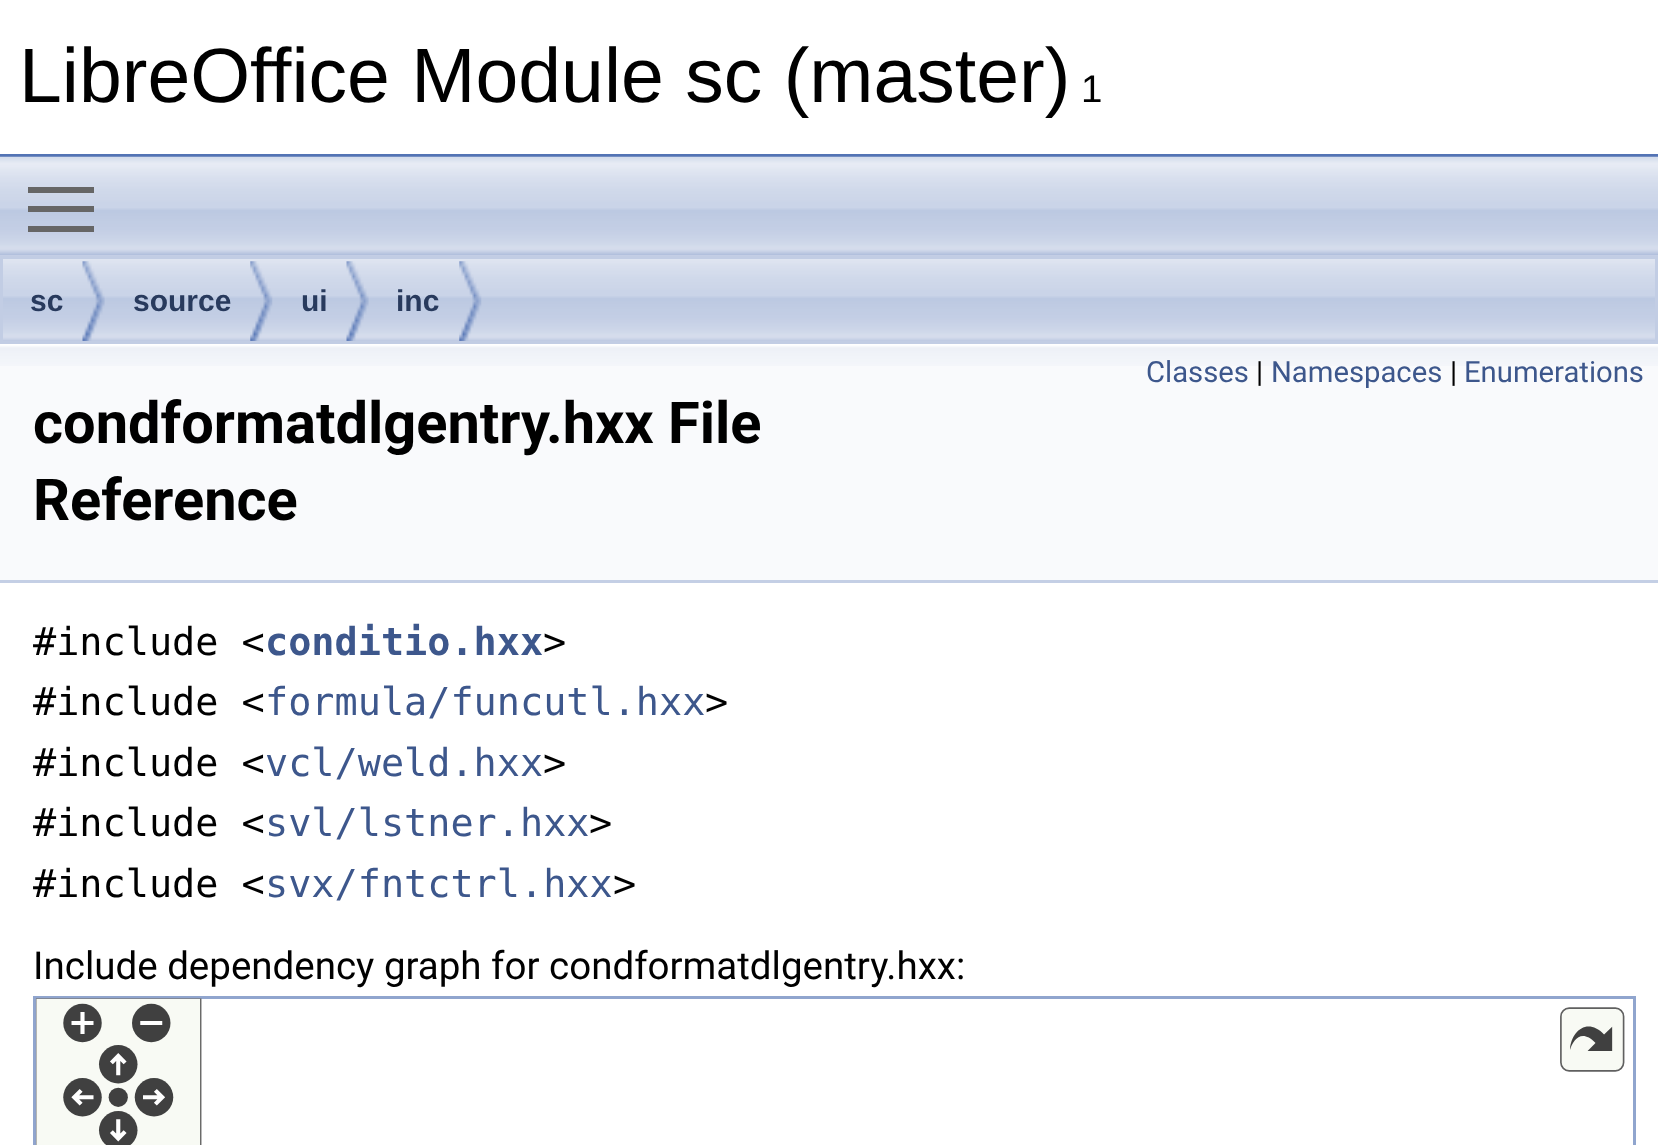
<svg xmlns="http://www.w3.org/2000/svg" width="1658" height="1145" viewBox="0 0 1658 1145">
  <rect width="100%" height="100%" fill="#fff"/>
  <path d="M0 154h1658v3H0z" fill="#5373b4"/>
  <image x="0" y="255" width="1658" height="86" href="img/2.png"/>
  <image x="0" y="156" width="1658" height="100" href="img/1.png"/>
  <path d="M28 206h66v6H28z" fill="#666"/>
  <path d="M28 187h66v6H28z" fill="#666"/>
  <path d="M28 226h66v6H28z" fill="#666"/>
  <path d="M1.5 257.5h1655v85H1.5z" fill="none" stroke="#c2cde4" stroke-width="3"/>
  <image x="82" y="261" width="23" height="80" href="img/3.png"/>
  <image x="250" y="261" width="23" height="80" href="img/4.png"/>
  <image x="346" y="261" width="23" height="80" href="img/5.png"/>
  <image x="459" y="261" width="23" height="80" href="img/6.png"/>
  <path d="M0 366h1658v214H0z" fill="#f9fafc"/>
  <image x="0" y="344" width="1658" height="22" href="img/7.png"/>
  <path d="M0 580h1658v3H0z" fill="#c4cfe5"/>
  <path d="M34.5 997.5h1600v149H34.5z" fill="none" stroke="#90a5ce" stroke-width="3"/>
  <image x="35" y="998" width="1590" height="147" href="img/8.png"/>
  <text x="19" y="102" font-family="Liberation Sans" font-size="77" fill="#000">LibreOffice Module sc (master)</text>
  <text x="1081" y="102" font-family="Liberation Sans" font-size="38.5" fill="#000">1</text>
  <g font-family="Liberation Sans" font-size="30" font-weight="bold" fill="#283a5d">
    <text x="30" y="311">sc</text>
    <text x="133" y="311">source</text>
    <text x="301" y="311">ui</text>
    <text x="396" y="311">inc</text>
  </g>
  <text x="1146" y="382" font-family="Roboto" font-size="29.25" fill="#3d578c">Classes</text>
  <text x="1256" y="382" font-family="Roboto" font-size="29.25" fill="#000">|</text>
  <text x="1271" y="382" font-family="Roboto" font-size="29.25" fill="#3d578c">Namespaces</text>
  <text x="1450" y="382" font-family="Roboto" font-size="29.25" fill="#000">|</text>
  <text x="1464" y="382" font-family="Roboto" font-size="29.25" fill="#3d578c">Enumerations</text>
  <g font-family="Roboto" font-size="57.75" font-weight="bold" fill="#000">
    <text x="33" y="443">condformatdlgentry.hxx File</text>
    <text x="33" y="520">Reference</text>
  </g>
  <text x="33" y="655" font-family="DejaVu Sans Mono" font-size="38.5" fill="#000">#include &lt;</text>
  <text x="265" y="655" font-family="DejaVu Sans Mono" font-size="38.5" font-weight="bold" fill="#3d578c">conditio.hxx</text>
  <g font-family="DejaVu Sans Mono" font-size="38.5" fill="#000">
    <text x="543" y="655">&gt;</text>
    <text x="33" y="715">#include &lt;</text>
  </g>
  <text x="265" y="715" font-family="DejaVu Sans Mono" font-size="38.5" fill="#3d578c">formula/funcutl.hxx</text>
  <g font-family="DejaVu Sans Mono" font-size="38.5" fill="#000">
    <text x="705" y="715">&gt;</text>
    <text x="33" y="776">#include &lt;</text>
  </g>
  <text x="265" y="776" font-family="DejaVu Sans Mono" font-size="38.5" fill="#3d578c">vcl/weld.hxx</text>
  <g font-family="DejaVu Sans Mono" font-size="38.5" fill="#000">
    <text x="543" y="776">&gt;</text>
    <text x="33" y="836">#include &lt;</text>
  </g>
  <text x="265" y="836" font-family="DejaVu Sans Mono" font-size="38.5" fill="#3d578c">svl/lstner.hxx</text>
  <g font-family="DejaVu Sans Mono" font-size="38.5" fill="#000">
    <text x="589" y="836">&gt;</text>
    <text x="33" y="897">#include &lt;</text>
  </g>
  <text x="265" y="897" font-family="DejaVu Sans Mono" font-size="38.5" fill="#3d578c">svx/fntctrl.hxx</text>
  <text x="613" y="897" font-family="DejaVu Sans Mono" font-size="38.5" fill="#000">&gt;</text>
  <text x="33" y="979" font-family="Roboto" font-size="38.5" fill="#000">Include dependency graph for condformatdlgentry.hxx:</text>
</svg>
